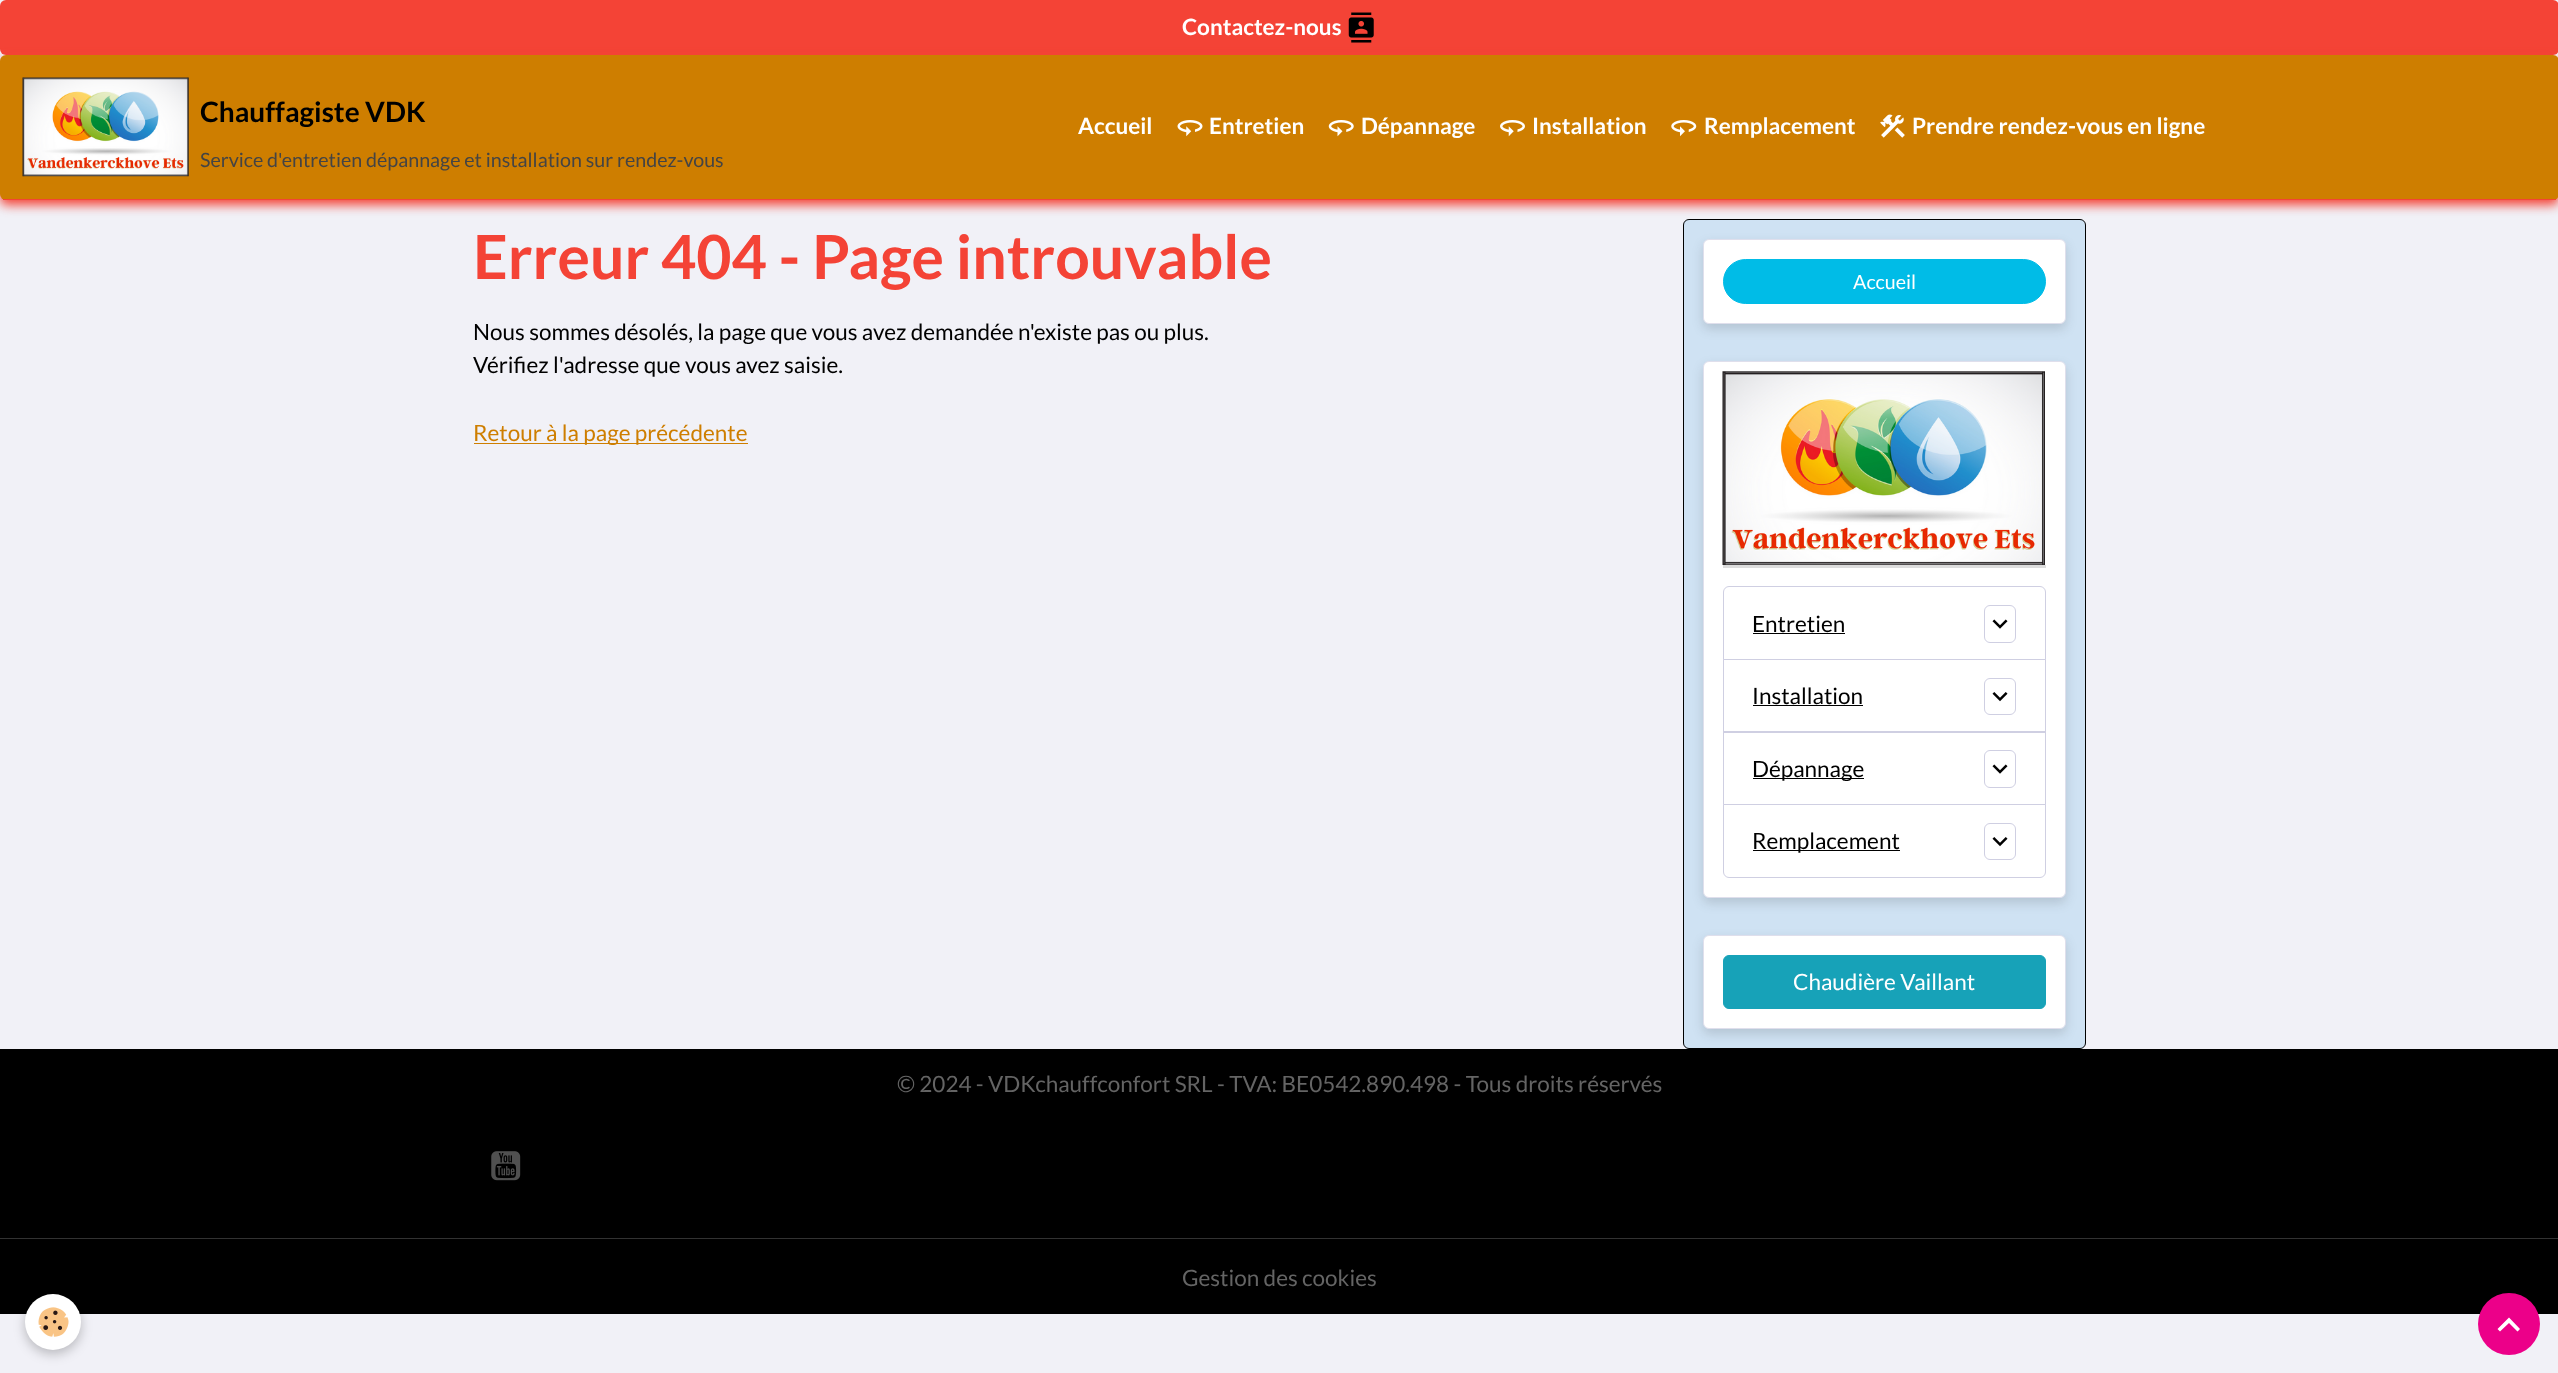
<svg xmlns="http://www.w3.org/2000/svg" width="2558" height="1373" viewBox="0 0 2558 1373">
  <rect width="100%" height="100%" fill="#f1f1f7"/>
  <rect width="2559" height="55" rx="6" fill="#f44336"/>
  <image x="1348" y="12" width="26" height="31" href="img/1.png"/>
  <rect x="1683.5" y="219.5" width="402" height="829" rx="5.5" fill="#cfe2f3" stroke="#000"/>
  <rect y="60" width="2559" height="145" rx="6" fill="#f44336" filter="blur(5.5px)"/>
  <rect y="55" width="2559" height="145" rx="6" fill="#ce7e00"/>
  <path d="M3 199h2553v1H3z" fill="#f44336"/>
  <image x="22" y="77" width="167" height="100" href="img/2.png"/>
  <image x="1177" y="120" width="26" height="17" href="img/3.png"/>
  <image x="1328" y="120" width="26" height="17" href="img/4.png"/>
  <image x="1500" y="120" width="25" height="17" href="img/5.png"/>
  <image x="1671" y="120" width="26" height="17" href="img/6.png"/>
  <image x="1880" y="114" width="25" height="24" href="img/7.png"/>
  <path d="M474 443h274v1H474z" fill="#ce7e00"/>
  <rect x="1703" y="244" width="363" height="85" rx="6" fill="#1a1a1a26" filter="blur(5.5px)"/>
  <rect x="1703.5" y="239.5" width="362" height="84" rx="5.5" fill="#fff" stroke="#dfdfec"/>
  <rect x="1723.5" y="259.5" width="322" height="44" rx="22" fill="#00bce7" stroke="#00bce7"/>
  <rect x="1703" y="366" width="363" height="537" rx="6" fill="#1a1a1a26" filter="blur(5.5px)"/>
  <rect x="1703.5" y="361.5" width="362" height="536" rx="5.5" fill="#fff" stroke="#dfdfec"/>
  <path d="M1723 565h323v3H1723z" fill="#ddd"/>
  <image x="1722" y="371" width="323" height="194" href="img/8.png"/>
  <path d="M1729 586.5H2040C2043 586.5 2045.5 589 2045.5 592V659.5H1723.5V592C1723.5 589 1726 586.5 1729 586.5Z" fill="none" stroke="#cfcfe2"/>
  <path d="M1753 633h92v1H1753z" fill="#000"/>
  <rect x="1984.5" y="605.5" width="31" height="37" rx="5.5" fill="none" stroke="#cfcfe2"/>
  <image x="1992" y="619" width="16" height="10" href="img/9.png"/>
  <path d="M1723.5 659.5h322v73H1723.5z" fill="none" stroke="#cfcfe2"/>
  <path d="M1753 705h110v1H1753z" fill="#000"/>
  <rect x="1984.5" y="678.5" width="31" height="36" rx="5.5" fill="none" stroke="#cfcfe2"/>
  <image x="1992" y="692" width="16" height="10" href="img/10.png"/>
  <path d="M1723.5 731.5h322v73H1723.5z" fill="none" stroke="#cfcfe2"/>
  <path d="M1753 778h111v1H1753z" fill="#000"/>
  <rect x="1984.5" y="750.5" width="31" height="37" rx="5.5" fill="none" stroke="#cfcfe2"/>
  <image x="1992" y="764" width="16" height="10" href="img/9.png"/>
  <path d="M1723.5 804.5H2045.5V872C2045.5 875 2043 877.5 2040 877.5H1729C1726 877.5 1723.5 875 1723.5 872Z" fill="none" stroke="#cfcfe2"/>
  <path d="M1753 850h147v1H1753z" fill="#000"/>
  <rect x="1984.5" y="823.5" width="31" height="36" rx="5.5" fill="none" stroke="#cfcfe2"/>
  <image x="1992" y="837" width="16" height="10" href="img/10.png"/>
  <path d="M0 1049h2558v265H0z" fill="#000"/>
  <rect x="1703" y="940" width="363" height="94" rx="6" fill="#1a1a1a26" filter="blur(5.5px)"/>
  <rect x="1703.5" y="935.5" width="362" height="93" rx="5.5" fill="#fff" stroke="#dfdfec"/>
  <rect x="1723.5" y="955.5" width="322" height="53" rx="5.5" fill="#17a2b8" stroke="#17a2b8"/>
  <image x="491" y="1151" width="30" height="30" href="img/11.png"/>
  <path d="M0 1238h2558v1H0z" fill="#323232"/>
  <rect x="25" y="1298" width="56" height="56" rx="28" fill="#0000003d" filter="blur(6px)"/>
  <circle cx="53" cy="1322" r="28" fill="#fff"/>
  <image x="38" y="1307" width="31" height="30" href="img/12.png"/>
  <circle cx="2509" cy="1324" r="31" fill="#ec0089"/>
  <path d="M2509 1317.5L2520 1329L2517.5 1331.5L2509 1323L2500 1331.5L2497.5 1329Z" fill="#fff"/>
  <text x="1182" y="35" font-family="Lato" font-size="22.5" font-weight="bold" fill="#fff">Contactez-nous</text>
  <text x="200" y="122" font-family="Lato" font-size="28" font-weight="bold" fill="#000">Chauffagiste VDK</text>
  <text x="200" y="167" font-family="Lato" font-size="19.7" fill="#444">Service d'entretien dépannage et installation sur rendez-vous</text>
  <g font-family="Lato" font-size="22.5" font-weight="bold" fill="#fff">
    <text x="1078" y="134">Accueil</text>
    <text x="1209" y="134">Entretien</text>
    <text x="1361" y="134">Dépannage</text>
    <text x="1532" y="134">Installation</text>
    <text x="1704" y="134">Remplacement</text>
    <text x="1912" y="134">Prendre rendez-vous en ligne</text>
  </g>
  <text x="473" y="279" font-family="Lato" font-size="60.75" font-weight="bold" fill="#f44336">Erreur 404 - Page introuvable</text>
  <g font-family="Lato" font-size="22.5" fill="#000">
    <text x="473" y="340">Nous sommes désolés, la page que vous avez demandée n'existe pas ou plus.</text>
    <text x="473" y="373">Vérifiez l'adresse que vous avez saisie.</text>
  </g>
  <text x="473" y="441" font-family="Lato" font-size="22.5" fill="#ce7e00">Retour à la page précédente</text>
  <text x="1853" y="289" font-family="Lato" font-size="19.7" fill="#fff">Accueil</text>
  <g font-family="Lato" font-size="22.5" fill="#000">
    <text x="1752" y="632">Entretien</text>
    <text x="1752" y="704">Installation</text>
    <text x="1752" y="777">Dépannage</text>
    <text x="1752" y="849">Remplacement</text>
  </g>
  <text x="1793" y="990" font-family="Lato" font-size="22.5" fill="#fff">Chaudière Vaillant</text>
  <g font-family="Lato" font-size="22.5" fill="#646464">
    <text x="897" y="1092">© 2024 - VDKchauffconfort SRL - TVA: BE0542.890.498 - Tous droits réservés</text>
    <text x="1182" y="1286">Gestion des cookies</text>
  </g>
</svg>
